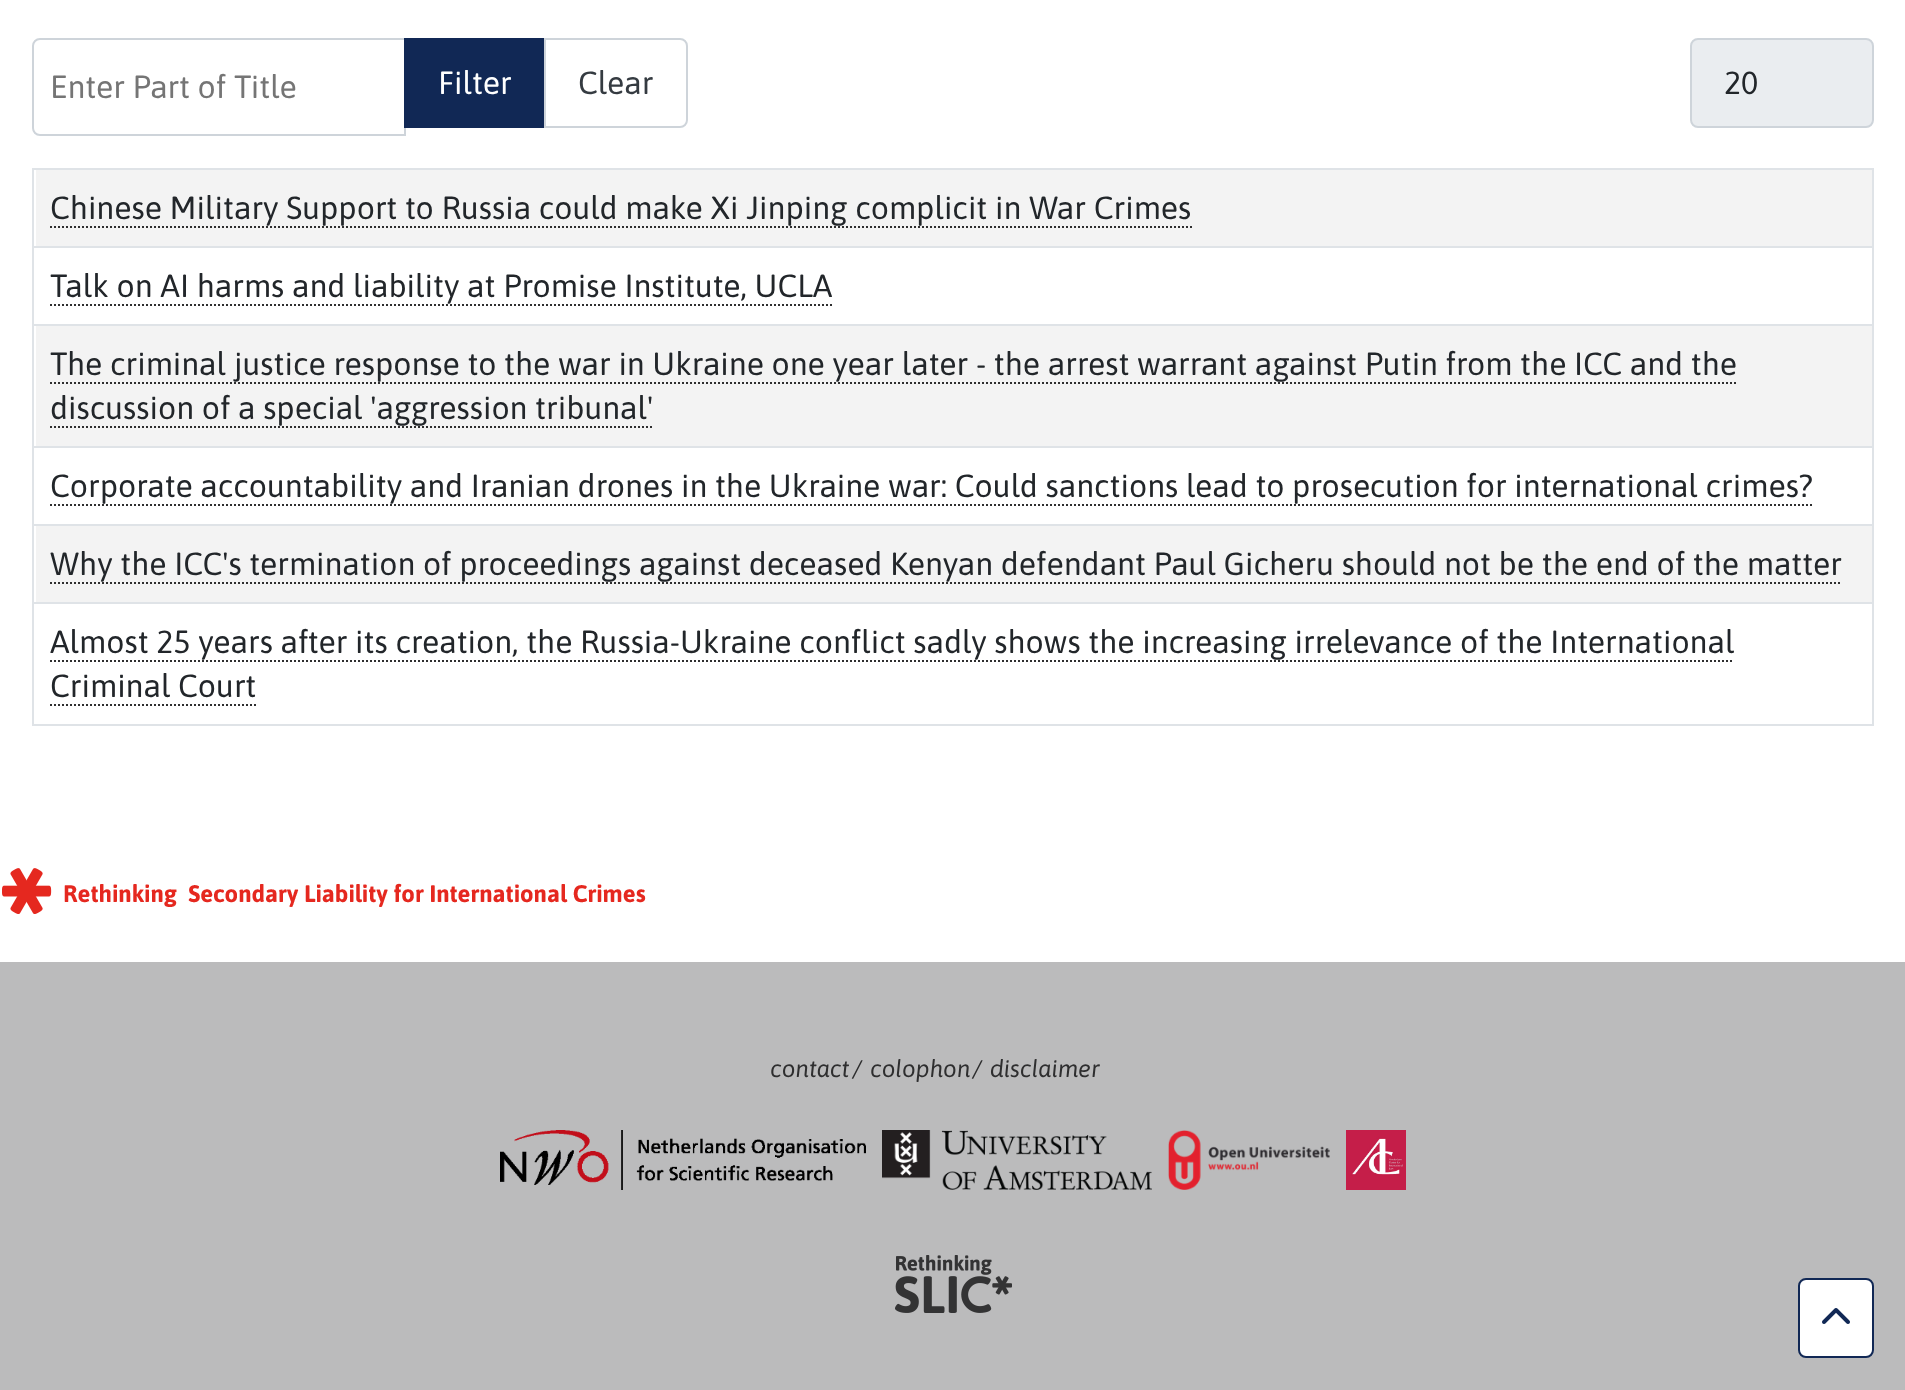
<svg xmlns="http://www.w3.org/2000/svg" width="1905" height="1390" viewBox="0 0 1905 1390">
  <rect width="100%" height="100%" fill="#fff"/>
  <path d="M40 39H405V135H40C36 135 33 132 33 128V46C33 42 36 39 40 39Z" fill="none" stroke="#ced4da" stroke-width="2"/>
  <path d="M404 38h140v90H404z" fill="#112855"/>
  <path d="M545 39H680C684 39 687 42 687 46V120C687 124 684 127 680 127H545Z" fill="none" stroke="#ced4da" stroke-width="2"/>
  <rect x="1691" y="39" width="182" height="88" rx="7" fill="#eaedf0" stroke="#ced4da" stroke-width="2"/>
  <path d="M32 168h1842v2H32z" fill="#dfe3e7"/>
  <path d="M36 170h1836v76H36z" fill="#f3f3f3"/>
  <path d="M50 227H1192" fill="none" stroke="#2e2e2f" stroke-width="2" stroke-dasharray="2 2"/>
  <path d="M32 246h1842v2H32z" fill="#dfe3e7"/>
  <path d="M50 305H832" fill="none" stroke="#2e2e2f" stroke-width="2" stroke-dasharray="2 2"/>
  <path d="M32 324h1842v2H32z" fill="#dfe3e7"/>
  <path d="M36 326h1836v120H36z" fill="#f3f3f3"/>
  <path d="M50 383H1738" fill="none" stroke="#2e2e2f" stroke-width="2" stroke-dasharray="2 2"/>
  <path d="M50 427H654" fill="none" stroke="#2e2e2f" stroke-width="2" stroke-dasharray="2 2"/>
  <path d="M32 446h1842v2H32z" fill="#dfe3e7"/>
  <path d="M50 505H1814" fill="none" stroke="#2e2e2f" stroke-width="2" stroke-dasharray="2 2"/>
  <path d="M32 524h1842v2H32z" fill="#dfe3e7"/>
  <path d="M36 526h1836v76H36z" fill="#f3f3f3"/>
  <path d="M50 583H1842" fill="none" stroke="#2e2e2f" stroke-width="2" stroke-dasharray="2 2"/>
  <path d="M32 602h1842v2H32z" fill="#dfe3e7"/>
  <path d="M32 724h1842v2H32z" fill="#dfe3e7"/>
  <path d="M1872 168h2v558H1872z" fill="#dfe3e7"/>
  <path d="M32 168h2v558H32z" fill="#dfe3e7"/>
  <path d="M50 661H1734" fill="none" stroke="#2e2e2f" stroke-width="2" stroke-dasharray="2 2"/>
  <path d="M50 705H256" fill="none" stroke="#2e2e2f" stroke-width="2" stroke-dasharray="2 2"/>
  <image x="2" y="868" width="644" height="46" href="img/1.png"/>
  <path d="M0 962h1905v428H0z" fill="#bbbbbc"/>
  <image x="500" y="1130" width="366" height="60" href="img/2.png"/>
  <image x="882" y="1130" width="270" height="60" href="img/3.png"/>
  <image x="1168" y="1130" width="162" height="60" href="img/4.png"/>
  <image x="1346" y="1130" width="60" height="60" href="img/5.png"/>
  <image x="895" y="1255" width="117" height="58" href="img/6.png"/>
  <rect x="1799" y="1279" width="74" height="78" rx="7" fill="#fff" stroke="#112855" stroke-width="2"/>
  <image x="1822" y="1308" width="28" height="16" href="img/7.png"/>
  <text x="50" y="98" font-family="Asap" font-size="32" fill="#757575">Enter Part of Title</text>
  <text x="438" y="94" font-family="Asap" font-size="32" fill="#fff">Filter</text>
  <text x="578" y="94" font-family="Asap" font-size="32" fill="#353b41">Clear</text>
  <g font-family="Asap" font-size="32" fill="#22262a">
    <text x="1724" y="94">20</text>
    <text x="50" y="219">Chinese Military Support to Russia could make Xi Jinping complicit in War Crimes</text>
    <text x="50" y="297">Talk on AI harms and liability at Promise Institute, UCLA</text>
    <text x="50" y="375">The criminal justice response to the war in Ukraine one year later - the arrest warrant against Putin from the ICC and the</text>
    <text x="50" y="419">discussion of a special 'aggression tribunal'</text>
    <text x="50" y="497">Corporate accountability and Iranian drones in the Ukraine war: Could sanctions lead to prosecution for international crimes?</text>
    <text x="50" y="575">Why the ICC's termination of proceedings against deceased Kenyan defendant Paul Gicheru should not be the end of the matter</text>
    <text x="50" y="653">Almost 25 years after its creation, the Russia-Ukraine conflict sadly shows the increasing irrelevance of the International</text>
    <text x="50" y="697">Criminal Court</text>
  </g>
  <g font-family="Asap" font-size="24" font-style="italic" fill="#2e2e2f">
    <text x="770" y="1077">contact</text>
    <text x="852" y="1077">/</text>
    <text x="870" y="1077">colophon</text>
    <text x="972" y="1077">/</text>
    <text x="990" y="1077">disclaimer</text>
  </g>
</svg>
